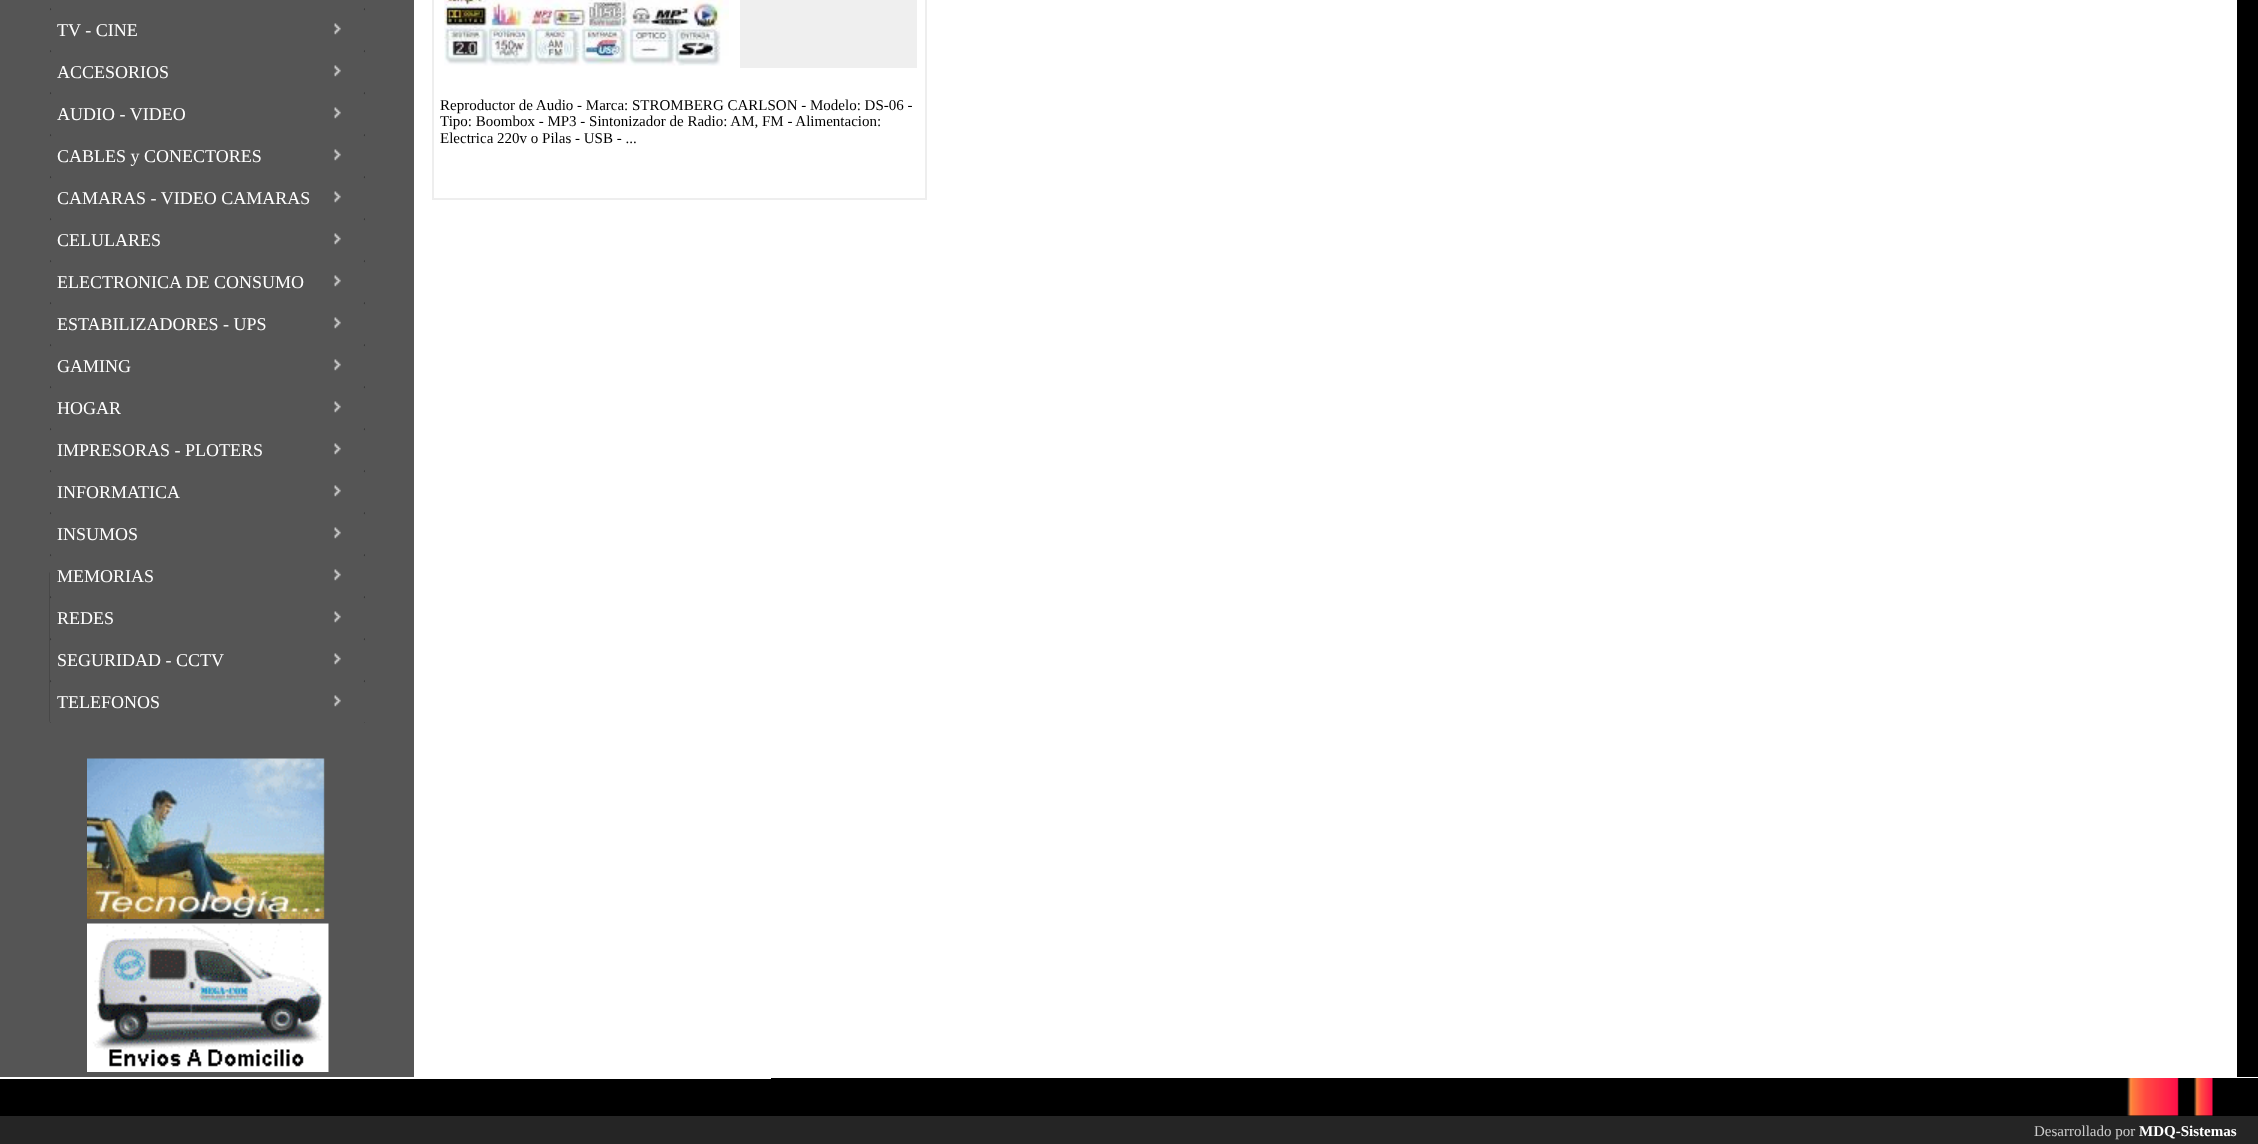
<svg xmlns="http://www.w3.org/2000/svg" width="2258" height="1144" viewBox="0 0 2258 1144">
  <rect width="100%" height="100%" fill="#252525"/>
  <path d="M0 0h414v1077H0z" fill="#555"/>
  <rect x="50" y="-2" width="315" height="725" rx="1.5" fill="#252525"/>
  <image x="49" y="572" width="2" height="151" href="img/1.png"/>
  <rect x="50" y="-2" width="315" height="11" rx="1.5" fill="#555"/>
  <rect x="50" y="9" width="315" height="42" rx="1.5" fill="#555"/>
  <image x="334" y="23" width="7" height="12" href="img/2.png"/>
  <rect x="50" y="51" width="315" height="42" rx="1.5" fill="#555"/>
  <image x="334" y="65" width="7" height="12" href="img/2.png"/>
  <rect x="50" y="93" width="315" height="42" rx="1.5" fill="#555"/>
  <image x="334" y="107" width="7" height="12" href="img/2.png"/>
  <rect x="50" y="135" width="315" height="42" rx="1.5" fill="#555"/>
  <image x="334" y="149" width="7" height="12" href="img/2.png"/>
  <rect x="50" y="177" width="315" height="42" rx="1.5" fill="#555"/>
  <image x="334" y="191" width="7" height="12" href="img/2.png"/>
  <rect x="50" y="219" width="315" height="42" rx="1.5" fill="#555"/>
  <image x="334" y="233" width="7" height="12" href="img/2.png"/>
  <rect x="50" y="261" width="315" height="42" rx="1.5" fill="#555"/>
  <image x="334" y="275" width="7" height="12" href="img/2.png"/>
  <rect x="50" y="303" width="315" height="42" rx="1.5" fill="#555"/>
  <image x="334" y="317" width="7" height="12" href="img/2.png"/>
  <rect x="50" y="345" width="315" height="42" rx="1.5" fill="#555"/>
  <image x="334" y="359" width="7" height="12" href="img/2.png"/>
  <rect x="50" y="387" width="315" height="42" rx="1.5" fill="#555"/>
  <image x="334" y="401" width="7" height="12" href="img/2.png"/>
  <rect x="50" y="429" width="315" height="42" rx="1.5" fill="#555"/>
  <image x="334" y="443" width="7" height="12" href="img/2.png"/>
  <rect x="50" y="471" width="315" height="42" rx="1.5" fill="#555"/>
  <image x="334" y="485" width="7" height="12" href="img/2.png"/>
  <rect x="50" y="513" width="315" height="42" rx="1.5" fill="#555"/>
  <image x="334" y="527" width="7" height="12" href="img/2.png"/>
  <rect x="50" y="555" width="315" height="42" rx="1.5" fill="#555"/>
  <image x="334" y="569" width="7" height="12" href="img/2.png"/>
  <rect x="50" y="597" width="315" height="42" rx="1.5" fill="#555"/>
  <image x="334" y="611" width="7" height="12" href="img/2.png"/>
  <rect x="50" y="639" width="315" height="42" rx="1.5" fill="#555"/>
  <image x="334" y="653" width="7" height="12" href="img/2.png"/>
  <rect x="50" y="681" width="315" height="42" rx="1.5" fill="#555"/>
  <image x="334" y="695" width="7" height="12" href="img/2.png"/>
  <image x="87" y="758" width="238" height="161" href="img/3.png"/>
  <image x="87" y="923" width="242" height="149" href="img/4.png"/>
  <path d="M414 0h1823v1077H414z" fill="#fff"/>
  <path d="M433 -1h493v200H433z" fill="none" stroke="#eee" stroke-width="2"/>
  <image x="444" y="0" width="285" height="66" href="img/5.png"/>
  <path d="M740 0h177v68H740z" fill="#efefef"/>
  <path d="M2237 0h21v1077H2237z" fill="#000"/>
  <path d="M0 1077h2258v2H0z" fill="#fff"/>
  <path d="M0 1079h2258v37H0z" fill="#000"/>
  <image x="771" y="1078" width="1487" height="38" href="img/6.png"/>
  <g font-family="Liberation Serif" font-size="18" fill="#fff">
    <text x="57" y="36">TV - CINE</text>
    <text x="57" y="78">ACCESORIOS</text>
    <text x="57" y="120">AUDIO - VIDEO</text>
    <text x="57" y="162">CABLES y CONECTORES</text>
    <text x="57" y="204">CAMARAS - VIDEO CAMARAS</text>
    <text x="57" y="246">CELULARES</text>
    <text x="57" y="288">ELECTRONICA DE CONSUMO</text>
    <text x="57" y="330">ESTABILIZADORES - UPS</text>
    <text x="57" y="372">GAMING</text>
    <text x="57" y="414">HOGAR</text>
    <text x="57" y="456">IMPRESORAS - PLOTERS</text>
    <text x="57" y="498">INFORMATICA</text>
    <text x="57" y="540">INSUMOS</text>
    <text x="57" y="582">MEMORIAS</text>
    <text x="57" y="624">REDES</text>
    <text x="57" y="666">SEGURIDAD - CCTV</text>
    <text x="57" y="708">TELEFONOS</text>
  </g>
  <g font-family="Liberation Serif" font-size="15" fill="#000">
    <text x="440" y="110">Reproductor de Audio - Marca: STROMBERG CARLSON - Modelo: DS-06 -</text>
    <text x="440" y="126">Tipo: Boombox - MP3 - Sintonizador de Radio: AM, FM - Alimentacion:</text>
    <text x="440" y="143">Electrica 220v o Pilas - USB - ...</text>
  </g>
  <text x="2034" y="1136" font-family="Liberation Serif" font-size="15" fill="#ccc">Desarrollado por</text>
  <text x="2139" y="1136" font-family="Liberation Serif" font-size="15" font-weight="bold" fill="#fff">MDQ-Sistemas</text>
</svg>
